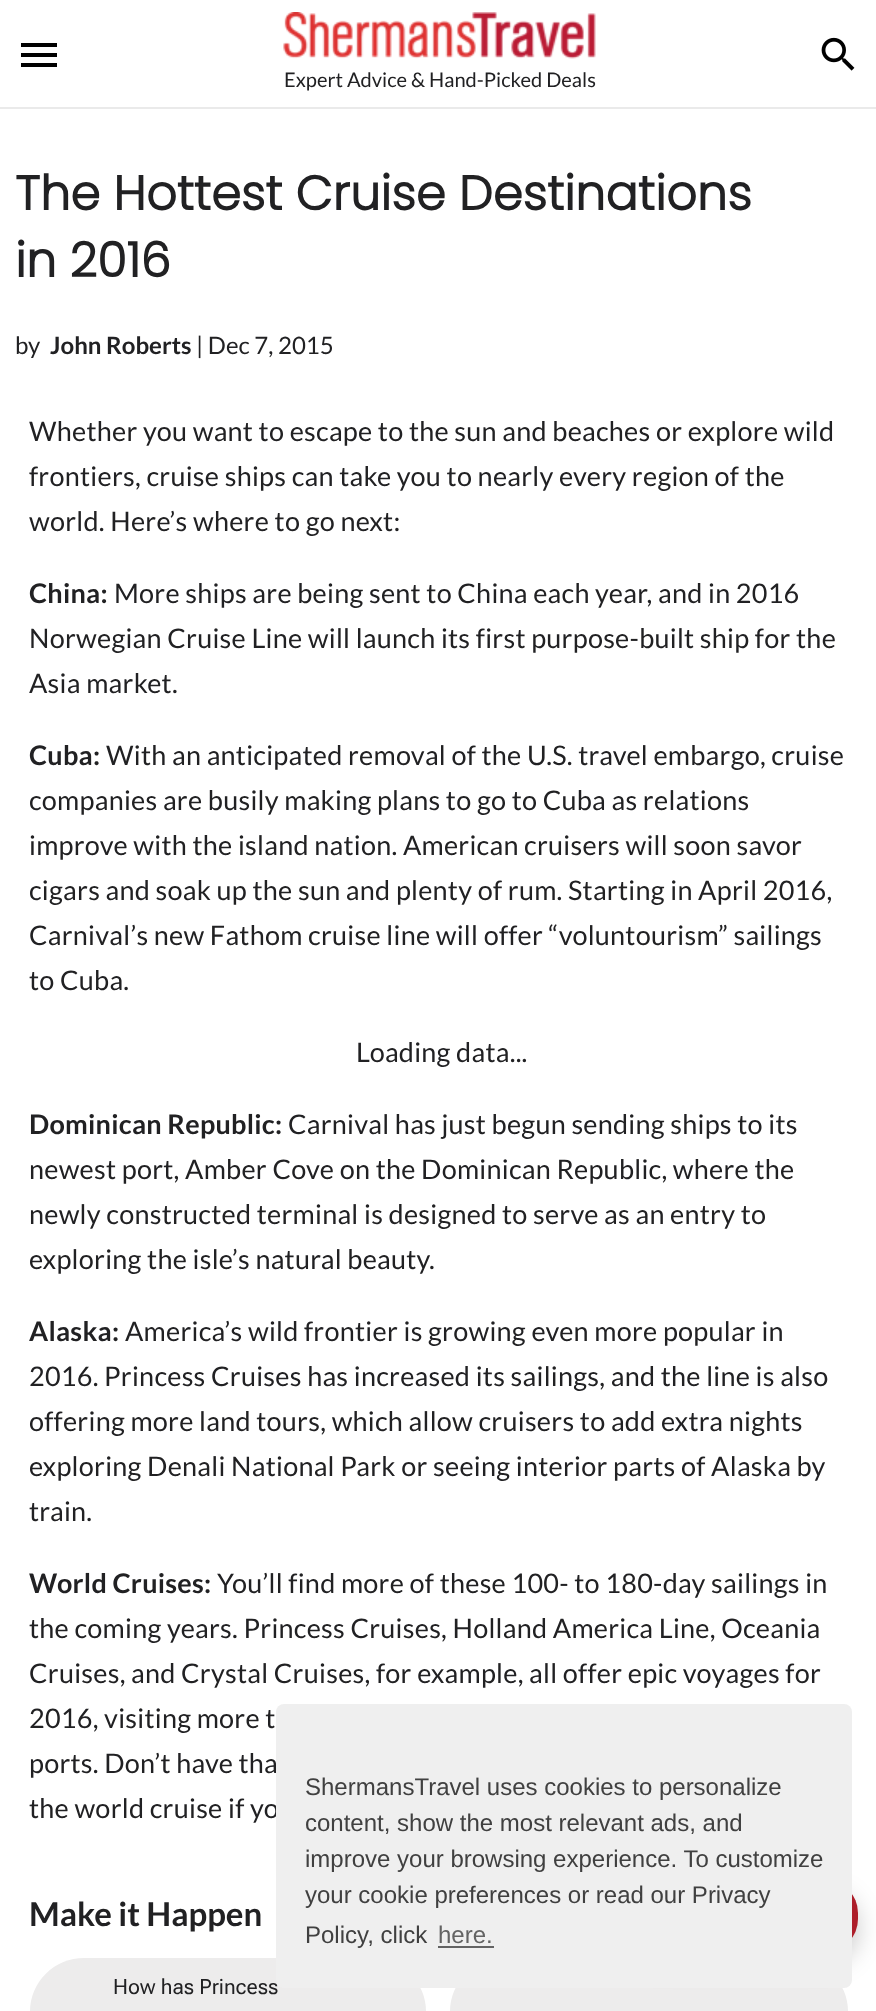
<svg xmlns="http://www.w3.org/2000/svg" width="876" height="2011" viewBox="0 0 876 2011">
  <rect width="100%" height="100%" fill="#fff"/>
  <path d="M0 107h876v2H0z" fill="#eaeaea"/>
  <path d="M21 43H57V47H21ZM21 57V53H57V57ZM21 67V63H57V67Z" fill="#000"/>
  <image x="821" y="37" width="34" height="34" href="img/1.png"/>
  <image x="283" y="12" width="313" height="47" href="img/2.png"/>
  <rect x="30" y="1958" width="396" height="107" rx="54" fill="#edecec"/>
  <rect x="450" y="1958" width="398" height="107" rx="54" fill="#edecec"/>
  <rect x="623" y="1892" width="235" height="72" rx="33" fill="#00000033" filter="blur(12px)"/>
  <rect x="623" y="1880" width="235" height="72" rx="33" fill="#ad1e2a"/>
  <text x="284" y="87" font-family="Lato" font-size="20.1" fill="#212123">Expert Advice &amp; Hand-Picked Deals</text>
  <g font-family="Poppins" font-size="48" font-weight="bold" fill="#212123">
    <text x="15" y="210">The Hottest Cruise Destinations</text>
    <text x="15" y="277">in 2016</text>
  </g>
  <text x="15" y="354" font-family="Lato" font-size="24" fill="#212123">by</text>
  <text x="50" y="354" font-family="Lato" font-size="24" font-weight="bold" fill="#212123">John Roberts</text>
  <text x="196" y="354" font-family="Lato" font-size="24" fill="#212123">| Dec 7, 2015</text>
  <g font-family="Lato" font-size="27" letter-spacing="0.25" fill="#212123">
    <text x="29" y="441">Whether you want to escape to the sun and beaches or explore wild</text>
    <text x="29" y="486">frontiers, cruise ships can take you to nearly every region of the</text>
    <text x="29" y="531">world. Here’s where to go next:</text>
  </g>
  <text x="29" y="603" font-family="Lato" font-size="27" font-weight="bold" letter-spacing="0.25" fill="#212123">China:</text>
  <g font-family="Lato" font-size="27" letter-spacing="0.25" fill="#212123">
    <text x="114" y="603">More ships are being sent to China each year, and in 2016</text>
    <text x="29" y="648">Norwegian Cruise Line will launch its first purpose-built ship for the</text>
    <text x="29" y="693">Asia market.</text>
  </g>
  <text x="29" y="765" font-family="Lato" font-size="27" font-weight="bold" letter-spacing="0.25" fill="#212123">Cuba:</text>
  <g font-family="Lato" font-size="27" letter-spacing="0.25" fill="#212123">
    <text x="106" y="765">With an anticipated removal of the U.S. travel embargo, cruise</text>
    <text x="29" y="810">companies are busily making plans to go to Cuba as relations</text>
    <text x="29" y="855">improve with the island nation. American cruisers will soon savor</text>
    <text x="29" y="900">cigars and soak up the sun and plenty of rum. Starting in April 2016,</text>
    <text x="29" y="945">Carnival’s new Fathom cruise line will offer “voluntourism” sailings</text>
    <text x="29" y="990">to Cuba.</text>
    <text x="356" y="1062">Loading data...</text>
  </g>
  <text x="29" y="1134" font-family="Lato" font-size="27" font-weight="bold" letter-spacing="0.25" fill="#212123">Dominican Republic:</text>
  <g font-family="Lato" font-size="27" letter-spacing="0.25" fill="#212123">
    <text x="288" y="1134">Carnival has just begun sending ships to its</text>
    <text x="29" y="1179">newest port, Amber Cove on the Dominican Republic, where the</text>
    <text x="29" y="1224">newly constructed terminal is designed to serve as an entry to</text>
    <text x="29" y="1269">exploring the isle’s natural beauty.</text>
  </g>
  <text x="29" y="1341" font-family="Lato" font-size="27" font-weight="bold" letter-spacing="0.25" fill="#212123">Alaska:</text>
  <g font-family="Lato" font-size="27" letter-spacing="0.25" fill="#212123">
    <text x="125" y="1341">America’s wild frontier is growing even more popular in</text>
    <text x="29" y="1386">2016. Princess Cruises has increased its sailings, and the line is also</text>
    <text x="29" y="1431">offering more land tours, which allow cruisers to add extra nights</text>
    <text x="29" y="1476">exploring Denali National Park or seeing interior parts of Alaska by</text>
    <text x="29" y="1521">train.</text>
  </g>
  <text x="29" y="1593" font-family="Lato" font-size="27" font-weight="bold" letter-spacing="0.25" fill="#212123">World Cruises:</text>
  <g font-family="Lato" font-size="27" letter-spacing="0.25" fill="#212123">
    <text x="217" y="1593">You’ll find more of these 100- to 180-day sailings in</text>
    <text x="29" y="1638">the coming years. Princess Cruises, Holland America Line, Oceania</text>
    <text x="29" y="1683">Cruises, and Crystal Cruises, for example, all offer epic voyages for</text>
    <text x="29" y="1728">2016, visiting more t</text>
    <text x="29" y="1773">ports. Don’t have tha</text>
    <text x="29" y="1818">the world cruise if yo</text>
  </g>
  <text x="29" y="1926" font-family="Lato" font-size="33" font-weight="bold" fill="#212123">Make it Happen</text>
  <text x="113" y="1994" font-family="Roboto Flex" font-size="21" fill="#212123">How has Princess</text>
  <rect x="276" y="1704" width="576" height="284" rx="8" fill="#efefef"/>
  <g font-family="Liberation Sans" font-size="24" fill="#404040">
    <text x="305" y="1795">ShermansTravel uses cookies to personalize</text>
    <text x="305" y="1831">content, show the most relevant ads, and</text>
    <text x="305" y="1867">improve your browsing experience. To customize</text>
    <text x="305" y="1903">your cookie preferences or read our Privacy</text>
    <text x="305" y="1943">Policy, click</text>
  </g>
  <text x="438" y="1943" font-family="Liberation Sans" font-size="24" fill="#636363">here.</text>
  <path d="M438 1946h56v2H438z" fill="#636363"/>
</svg>
